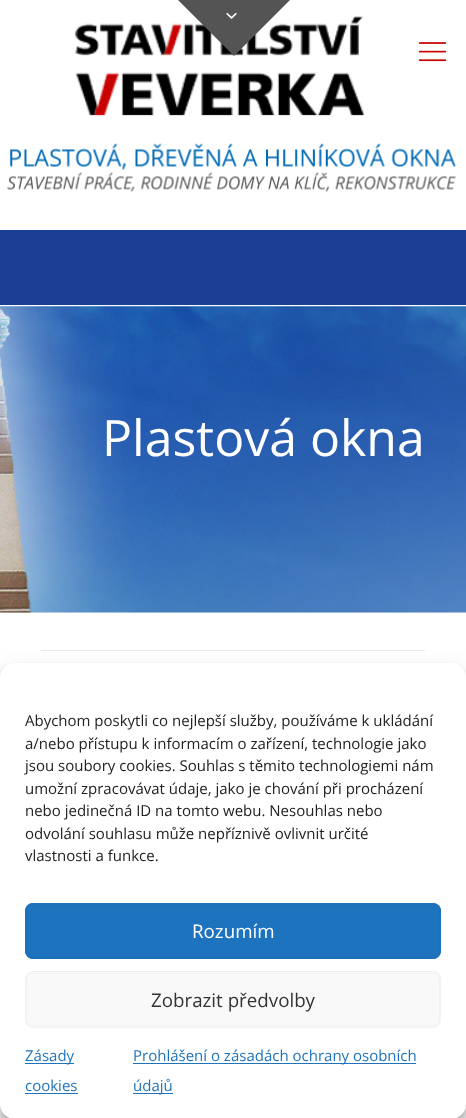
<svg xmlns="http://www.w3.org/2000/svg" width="466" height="1118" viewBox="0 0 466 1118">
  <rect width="100%" height="100%" fill="#fff"/>
  <image x="74" y="16" width="290" height="100" href="img/2.png"/>
  <path d="M178 0H290L234 56Z" fill="#545454"/>
  <image x="226" y="12" width="11" height="7" href="img/1.png"/>
  <path d="M0 230h466v75H0z" fill="#1c3f95"/>
  <image x="418" y="42" width="29" height="20" href="img/3.png"/>
  <image x="7" y="143" width="450" height="49" href="img/4.png"/>
  <path d="M0 306h466v307H0z" fill="#f7f7f7"/>
  <image x="0" y="306" width="466" height="307" href="img/5.png"/>
  <path d="M41 650h384v1H41z" fill="#ebebeb"/>
  <rect y="670" width="466" height="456" rx="15" fill="#0000003b" filter="blur(4px)"/>
  <rect y="675" width="466" height="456" rx="15" fill="#00000030" filter="blur(12.5px)"/>
  <rect x="379" y="1026" width="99" height="75" rx="2.5" fill="#808080" filter="blur(3px)"/>
  <rect y="663" width="466" height="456" rx="15" fill="#fff"/>
  <rect x="25" y="903" width="416" height="56" rx="8" fill="#1e73be"/>
  <rect x="26.5" y="904.5" width="413" height="53" rx="5.5" fill="none" stroke="#1d70b8"/>
  <rect x="25.5" y="903.5" width="415" height="55" rx="7.5" fill="none" stroke="#1e73be"/>
  <rect x="25" y="971" width="416" height="57" rx="8" fill="#f9f9f9"/>
  <rect x="26.5" y="973.5" width="413" height="52" rx="5.5" fill="none" stroke="#f2f2f2"/>
  <rect x="25.5" y="971.5" width="415" height="56" rx="7.5" fill="none" stroke="#f2f2f2"/>
  <path d="M25 1063h49v1H25z" fill="#1e73be"/>
  <path d="M25 1093h53v1H25z" fill="#1e73be"/>
  <path d="M133 1063h283v1H133z" fill="#1e73be"/>
  <path d="M133 1093h40v1H133z" fill="#1e73be"/>
  <text x="102" y="456" font-family="Open Sans" font-size="50" fill="#fff">Plastová okna</text>
  <g font-family="Open Sans" font-size="15" fill="#222">
    <text x="25" y="726">Abychom poskytli co nejlepší služby, používáme k ukládání</text>
    <text x="25" y="749">a/nebo přístupu k informacím o zařízení, technologie jako</text>
    <text x="25" y="771">jsou soubory cookies. Souhlas s těmito technologiemi nám</text>
    <text x="25" y="794">umožní zpracovávat údaje, jako je chování při procházení</text>
    <text x="25" y="816">nebo jedinečná ID na tomto webu. Nesouhlas nebo</text>
    <text x="25" y="839">odvolání souhlasu může nepříznivě ovlivnit určité</text>
    <text x="25" y="861">vlastnosti a funkce.</text>
  </g>
  <text x="192" y="938" font-family="Open Sans" font-size="18.75" fill="#fff">Rozumím</text>
  <text x="151" y="1007" font-family="Open Sans" font-size="18.75" fill="#333">Zobrazit předvolby</text>
  <g font-family="Open Sans" font-size="15" fill="#1e73be">
    <text x="25" y="1061">Zásady</text>
    <text x="25" y="1091">cookies</text>
    <text x="133" y="1061">Prohlášení o zásadách ochrany osobních</text>
    <text x="133" y="1091">údajů</text>
  </g>
</svg>
